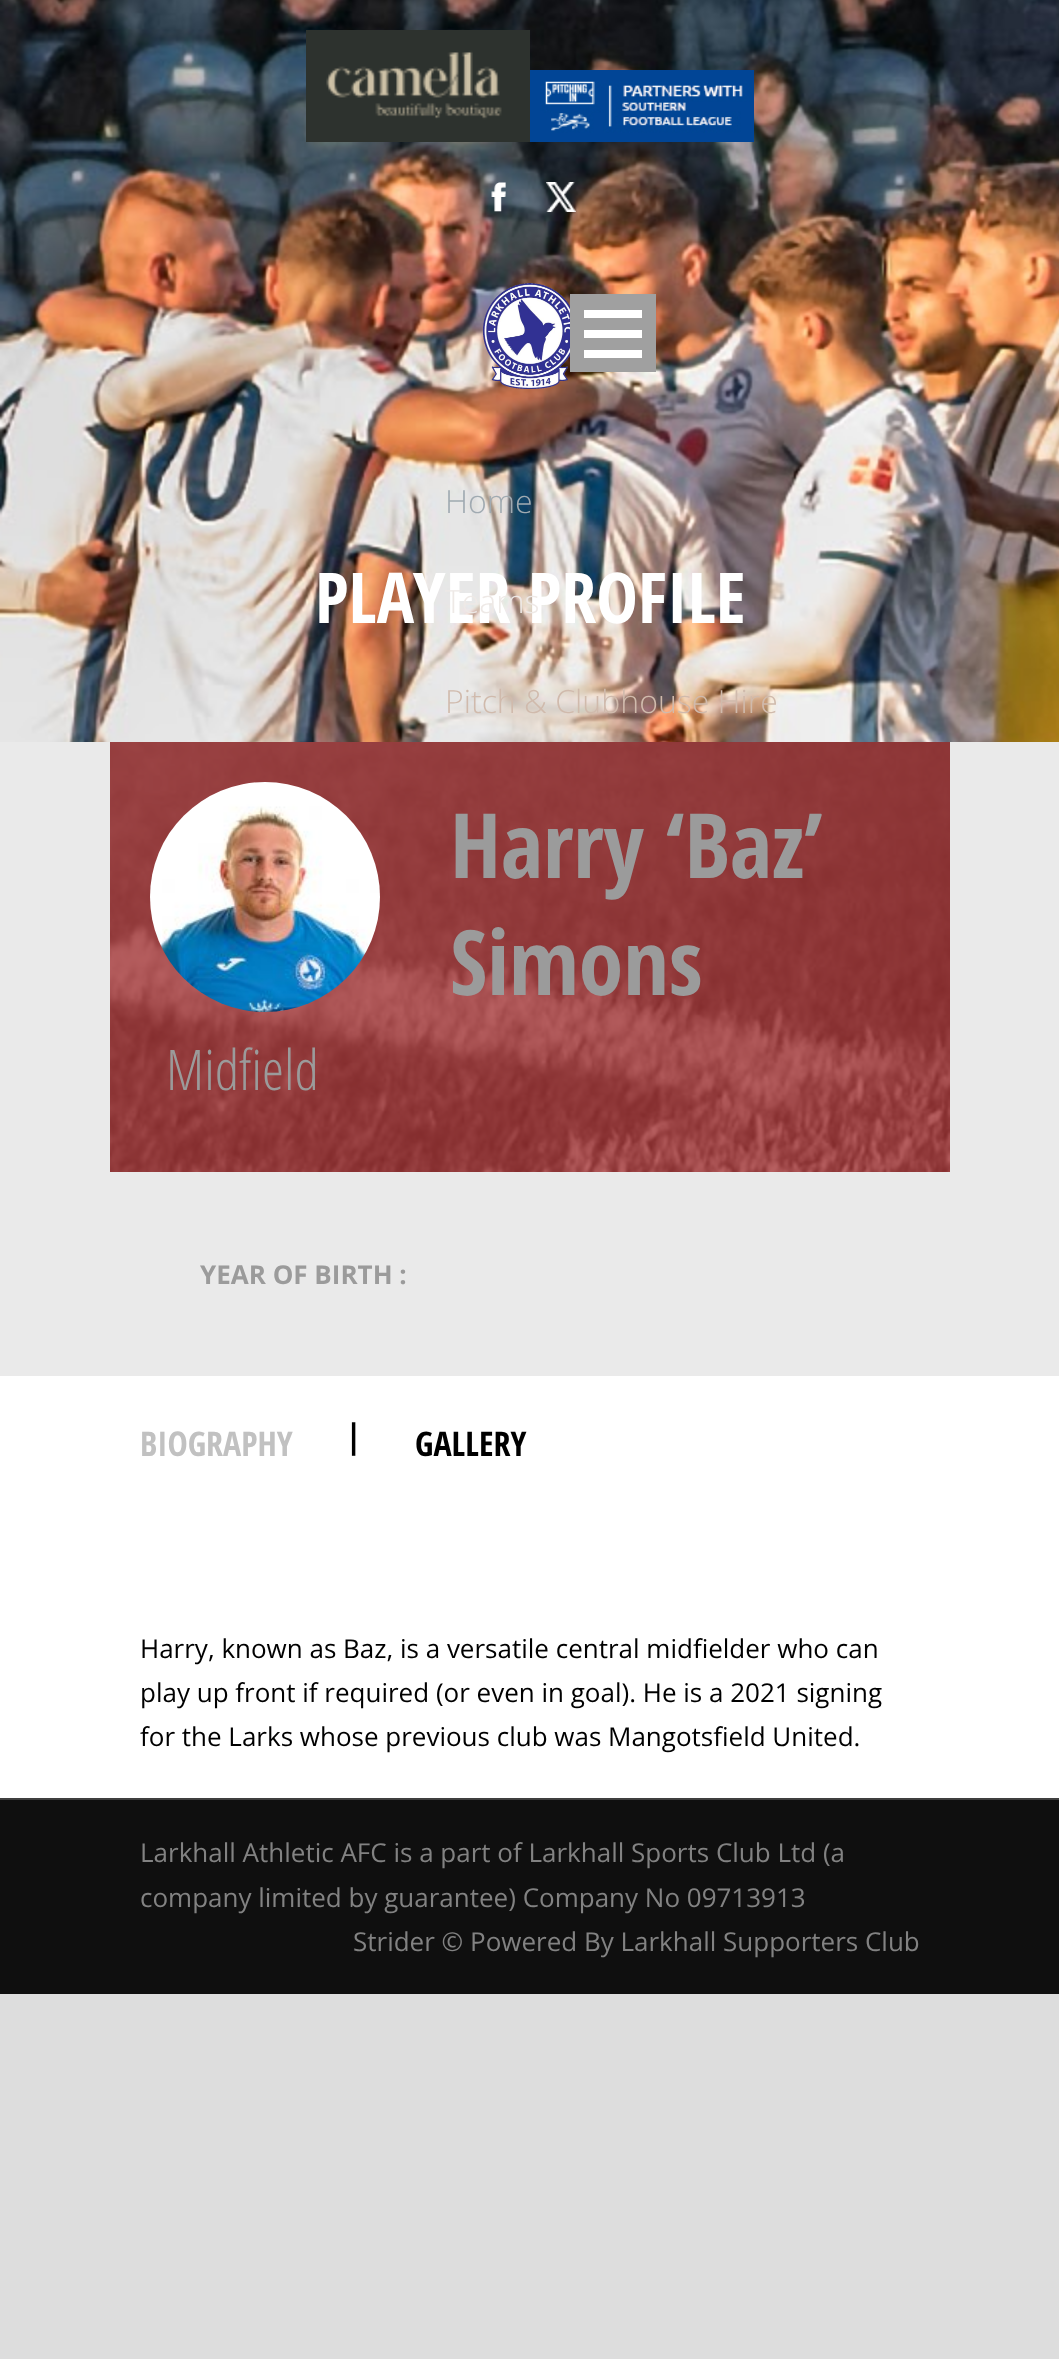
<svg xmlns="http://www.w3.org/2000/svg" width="1059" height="2359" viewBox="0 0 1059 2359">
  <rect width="100%" height="100%" fill="#ddd"/>
  <path d="M0 1376h1059v422H0z" fill="#fff"/>
  <image x="0" y="0" width="1059" height="742" href="img/1.png"/>
  <image x="306" y="30" width="224" height="112" href="img/2.png"/>
  <image x="530" y="70" width="224" height="72" href="img/3.png"/>
  <image x="491" y="182" width="15" height="30" href="img/4.png"/>
  <image x="546" y="182" width="30" height="30" href="img/5.png"/>
  <image x="482" y="283" width="88" height="106" href="img/6.png"/>
  <path d="M570 294h86v78H570z" fill="#a0a0a0"/>
  <path d="M584 350h58v8H584z" fill="#fff"/>
  <path d="M584 330h58v8H584z" fill="#fff"/>
  <path d="M584 310h58v8H584z" fill="#fff"/>
  <path d="M0 742h1059v634H0z" fill="#eaeaea"/>
  <image x="110" y="742" width="840" height="430" href="img/7.png"/>
  <image x="150" y="782" width="230" height="230" href="img/8.png"/>
  <path d="M0 1800h1059v194H0z" fill="#0f0f0f"/>
  <path d="M0 1798h1059v2H0z" fill="#3f3f3f"/>
  <text x="445" y="513" font-family="Open Sans" font-size="32" font-weight="300" fill="#a0aab1">Home</text>
  <text x="445" y="713" font-family="Open Sans" font-size="32" font-weight="300" fill="#d0baac">Pitch &amp; Clubhouse Hire</text>
  <text x="315" y="623" font-family="Open Sans Condensed" font-size="70" font-weight="bold" fill="#fff">PLAYER PROFILE</text>
  <text x="445" y="613" font-family="Open Sans" font-size="32" font-weight="300" fill="#eee9e6">Teams</text>
  <g font-family="Open Sans Condensed" font-size="90" font-weight="bold" fill="#9b9b9b">
    <text x="450" y="878">Harry ‘Baz’</text>
    <text x="450" y="995">Simons</text>
  </g>
  <text x="166" y="1090" font-family="Open Sans Condensed" font-size="56" font-weight="300" fill="#9b9b9b">Midfield</text>
  <text x="200" y="1284" font-family="Open Sans" font-size="26" font-weight="bold" fill="#9b9b9b">YEAR OF BIRTH :</text>
  <text x="140" y="1456" font-family="Open Sans Condensed" font-size="34" font-weight="bold" fill="#c1c1c1">BIOGRAPHY</text>
  <g font-family="Open Sans Condensed" font-size="34" font-weight="bold" fill="#000">
    <text x="345" y="1448">|</text>
    <text x="415" y="1456">GALLERY</text>
  </g>
  <g font-family="Open Sans" font-size="26" fill="#000">
    <text x="140" y="1658">Harry, known as Baz, is a versatile central midfielder who can</text>
    <text x="140" y="1702">play up front if required (or even in goal). He is a 2021 signing</text>
    <text x="140" y="1746">for the Larks whose previous club was Mangotsfield United.</text>
  </g>
  <g font-family="Open Sans" font-size="26" fill="#828282">
    <text x="140" y="1862">Larkhall Athletic AFC is a part of Larkhall Sports Club Ltd (a</text>
    <text x="140" y="1907">company limited by guarantee) Company No 09713913</text>
    <text x="353" y="1951">Strider © Powered By Larkhall Supporters Club</text>
  </g>
</svg>
